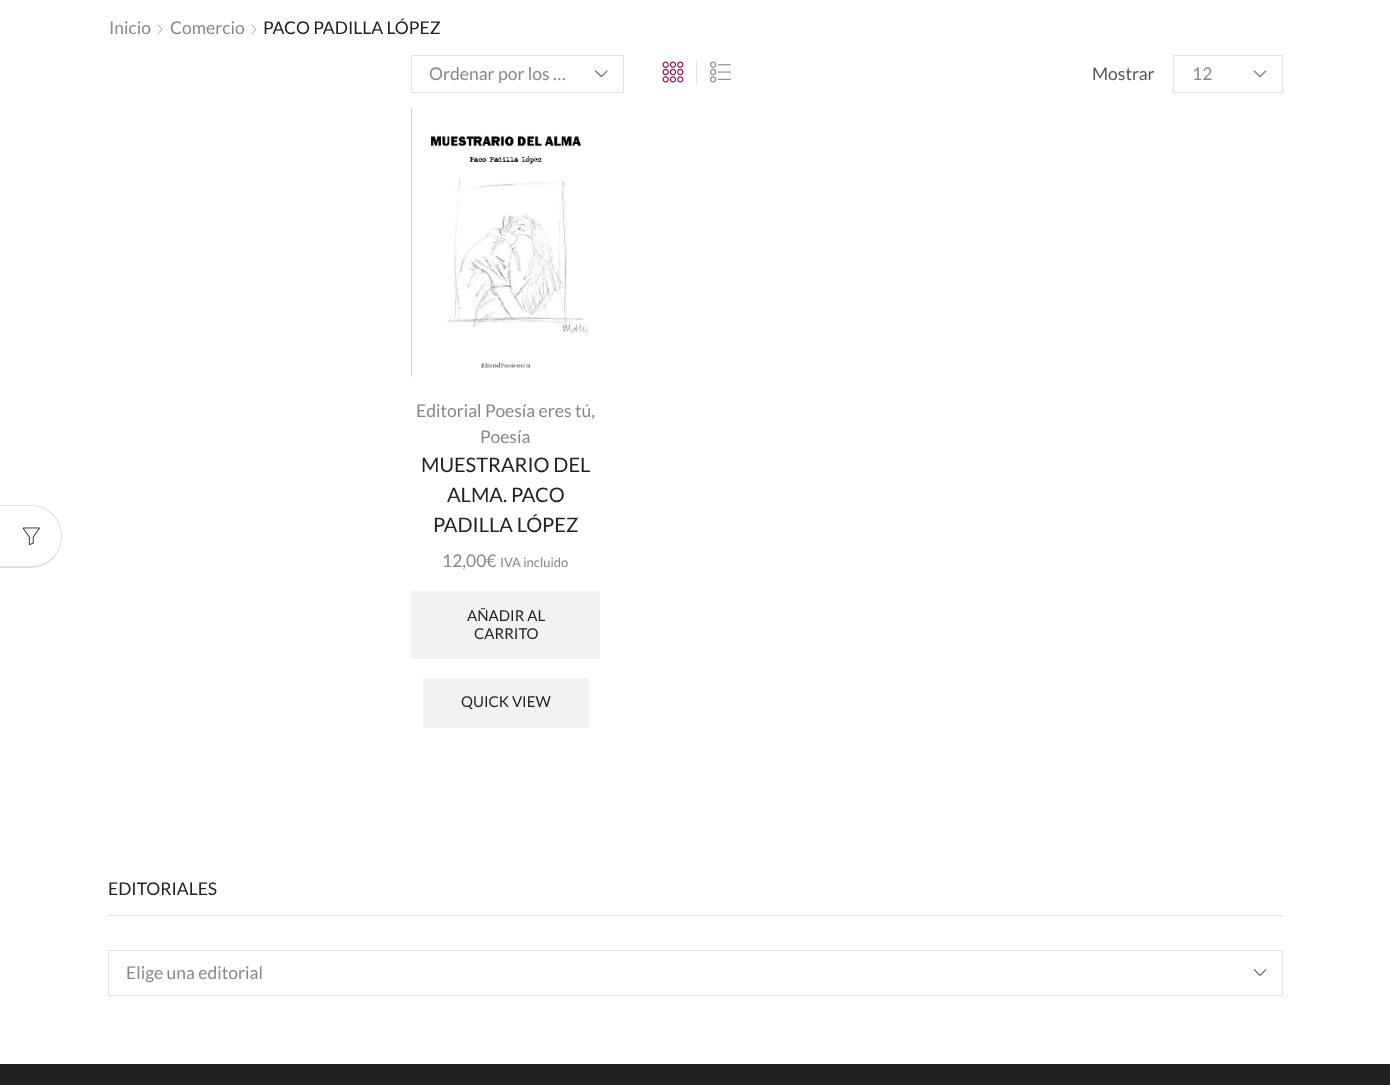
<svg xmlns="http://www.w3.org/2000/svg" width="1390" height="1085" viewBox="0 0 1390 1085">
  <rect width="100%" height="100%" fill="#fff"/>
  <path d="M0 505H31C49 505 62 519 62 536C62 554 49 568 31 568H0ZM0 506H31C48 506 61 520 61 536C61 553 48 566 31 566H0Z" fill="#e1e1e1" fill-rule="evenodd"/>
  <image x="22" y="527" width="18" height="18" href="img/1.png"/>
  <image x="157" y="24" width="6" height="11" href="img/2.png"/>
  <image x="251" y="24" width="6" height="11" href="img/3.png"/>
  <image x="595" y="70" width="13" height="8" href="img/4.png"/>
  <path d="M411.5 55.5h212v37H411.5z" fill="none" stroke="#e1e1e1"/>
  <image x="662" y="61" width="22" height="22" href="img/5.png"/>
  <path d="M696 61h1v24H696z" fill="#e1e1e1"/>
  <image x="710" y="61" width="21" height="22" href="img/6.png"/>
  <image x="1253" y="70" width="14" height="8" href="img/7.png"/>
  <path d="M1173.5 55.5h109v37H1173.5z" fill="none" stroke="#e1e1e1"/>
  <image x="411" y="107" width="179" height="270" href="img/8.png"/>
  <path d="M411 591h189v68H411z" fill="#f2f2f2"/>
  <path d="M423 678h166v50H423z" fill="#f2f2f2"/>
  <path d="M108 915h1175v1H108z" fill="#e1e1e1"/>
  <image x="1253" y="969" width="14" height="7" href="img/9.png"/>
  <path d="M108.5 950.5h1174v45H108.5z" fill="none" stroke="#e1e1e1"/>
  <path d="M0 1064h1390v21H0z" fill="#222"/>
  <g font-family="Lato" font-size="17.5" fill="#888">
    <text x="109" y="34">Inicio</text>
    <text x="170" y="34">Comercio</text>
  </g>
  <text x="263" y="34" font-family="Lato" font-size="17.5" fill="#222">PACO PADILLA LÓPEZ</text>
  <text x="429" y="80" font-family="Lato" font-size="17.5" fill="#888">Ordenar por los …</text>
  <text x="1092" y="80" font-family="Lato" font-size="17.5" fill="#555">Mostrar</text>
  <g font-family="Lato" font-size="17.5" fill="#888">
    <text x="1192" y="80">12</text>
    <text x="416" y="417">Editorial Poesía eres tú,</text>
    <text x="480" y="443">Poesía</text>
  </g>
  <g font-family="Lato" font-size="20" fill="#222">
    <text x="421" y="472">MUESTRARIO DEL</text>
    <text x="447" y="502">ALMA. PACO</text>
    <text x="433" y="532">PADILLA LÓPEZ</text>
  </g>
  <text x="442" y="567" font-family="Lato" font-size="17.5" fill="#888">12,00€</text>
  <text x="500" y="567" font-family="Lato" font-size="13" fill="#888">IVA incluido</text>
  <g font-family="Lato" font-size="15" fill="#222">
    <text x="467" y="621">AÑADIR AL</text>
    <text x="474" y="639">CARRITO</text>
    <text x="461" y="707">QUICK VIEW</text>
  </g>
  <text x="108" y="895" font-family="Lato" font-size="17.5" fill="#222">EDITORIALES</text>
  <text x="126" y="979" font-family="Lato" font-size="17.5" fill="#888">Elige una editorial</text>
</svg>
